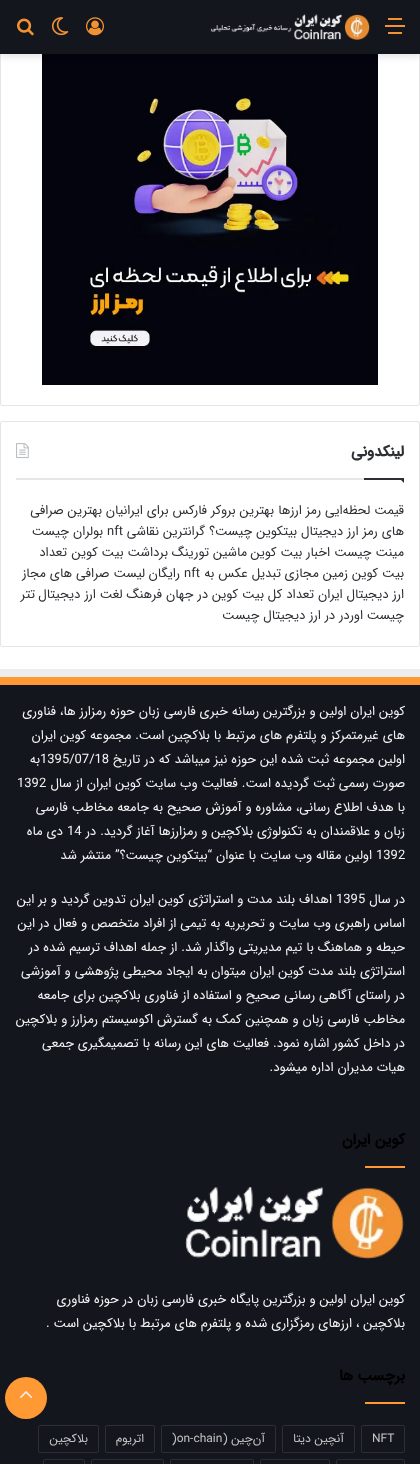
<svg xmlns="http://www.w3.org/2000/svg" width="420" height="1464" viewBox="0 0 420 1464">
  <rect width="100%" height="100%" fill="#fff"/>
  <rect x="0.5" y="28.5" width="419" height="377" rx="1.5" fill="none" stroke="#e5e5e5"/>
  <image x="42" y="54" width="336" height="331" href="img/5.png"/>
  <path d="M0 3h420v54H0z" fill="#0000001a" filter="blur(3.5px)"/>
  <path d="M0 0h420v54H0z" fill="#14161e"/>
  <path d="M385 25h20v2H385z" fill="#f39232"/>
  <path d="M388 18h14v2H388z" fill="#f39232"/>
  <path d="M388 32h14v2H388z" fill="#f39232"/>
  <image x="210" y="14" width="160" height="26" href="img/1.png"/>
  <image x="86" y="17" width="18" height="19" href="img/2.png"/>
  <image x="52" y="17" width="17" height="19" href="img/3.png"/>
  <image x="17" y="18" width="17" height="18" href="img/4.png"/>
  <rect x="0.5" y="421.5" width="419" height="225" rx="1.5" fill="none" stroke="#e5e5e5"/>
  <path d="M16 478h348v2H16z" fill="#e6e6e6"/>
  <image x="16" y="443" width="13" height="16" href="img/6.png"/>
  <path d="M399 478H404V483Z" fill="#2c2f34"/>
  <path d="M364 478h40v2H364z" fill="#2c2f34"/>
  <path d="M0 685h420v779H0z" fill="#14161e"/>
  <path d="M0 669h420v8H0z" fill="#ededed"/>
  <path d="M0 677h420v8H0z" fill="#f93"/>
  <path d="M365 1166h40v2H365z" fill="#f93"/>
  <image x="185" y="1187" width="219" height="72" href="img/7.png"/>
  <path d="M365 1402h40v2H365z" fill="#f93"/>
  <rect x="361.5" y="1425.5" width="43" height="27" rx="1.5" fill="none" stroke="#2c2d35"/>
  <rect x="282.5" y="1425.5" width="72" height="27" rx="1.5" fill="none" stroke="#2c2d35"/>
  <rect x="161.5" y="1425.5" width="114" height="27" rx="1.5" fill="none" stroke="#2c2d35"/>
  <rect x="105.5" y="1425.5" width="49" height="27" rx="1.5" fill="none" stroke="#2c2d35"/>
  <rect x="38.5" y="1425.5" width="60" height="27" rx="1.5" fill="none" stroke="#2c2d35"/>
  <rect x="336.5" y="1459.5" width="68" height="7" rx="1.5" fill="none" stroke="#2c2d35"/>
  <rect x="260.5" y="1459.5" width="69" height="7" rx="1.5" fill="none" stroke="#2c2d35"/>
  <rect x="170.5" y="1459.5" width="83" height="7" rx="1.5" fill="none" stroke="#2c2d35"/>
  <rect x="91.5" y="1459.5" width="72" height="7" rx="1.5" fill="none" stroke="#2c2d35"/>
  <rect x="43.5" y="1459.5" width="41" height="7" rx="1.5" fill="none" stroke="#2c2d35"/>
  <circle cx="26" cy="1398" r="21" fill="#f93"/>
  <image x="20" y="1391" width="13" height="8" href="img/8.png"/>
  <text x="404" y="456" font-family="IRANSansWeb" font-size="15" font-weight="bold" direction="rtl" fill="#2c2f34">لینکدونی</text>
  <g font-family="IRANSansWeb" font-size="13" direction="rtl" fill="#2c2f34">
    <text x="404" y="514">قیمت لحظه‌ایی رمز ارز‌ها</text>
    <text x="274" y="514">بهترین بروکر فارکس برای ایرانیان</text>
    <text x="102" y="514">بهترین صرافی</text>
    <text x="404" y="535">های رمز ارز دیجیتال</text>
    <text x="297" y="535">بیتکوین چیست؟</text>
    <text x="205" y="535">گرانترین نقاشی</text>
  </g>
  <text x="107" y="535" font-family="IRANSansWeb" font-size="13" fill="#2c2f34">nft</text>
  <g font-family="IRANSansWeb" font-size="13" direction="rtl" fill="#2c2f34">
    <text x="103" y="535">بولران چیست</text>
    <text x="404" y="556">مینت چیست</text>
    <text x="330" y="556">اخبار بیت کوین</text>
    <text x="247" y="556">ماشین تورینگ</text>
    <text x="168" y="556">برداشت بیت کوین</text>
    <text x="67" y="556">تعداد</text>
    <text x="404" y="577">بیت کوین</text>
    <text x="348" y="577">زمین مجازی</text>
    <text x="281" y="577">تبدیل عکس به</text>
  </g>
  <text x="184" y="577" font-family="IRANSansWeb" font-size="13" fill="#2c2f34">nft</text>
  <g font-family="IRANSansWeb" font-size="13" direction="rtl" fill="#2c2f34">
    <text x="180" y="577">رایگان</text>
    <text x="145" y="577">لیست صرافی های مجاز</text>
    <text x="404" y="598">ارز دیجیتال ایران</text>
    <text x="314" y="598">تعداد کل بیت کوین در جهان</text>
    <text x="162" y="598">فرهنگ لغت ارز دیجیتال</text>
    <text x="35" y="598">تتر</text>
    <text x="404" y="619">چیست</text>
    <text x="363" y="619">اوردر در ارز دیجیتال چیست</text>
  </g>
  <g font-family="IRANSansWeb" font-size="13" direction="rtl" fill="#f4f4f4">
    <text x="405" y="715">کوین ایران اولین و بزرگترین رسانه خبری فارسی زبان حوزه رمزارز ها، فناوری</text>
    <text x="405" y="739">های غیرمتمرکز و پلتفرم های مرتبط با بلاکچین است. مجموعه کوین ایران</text>
    <text x="405" y="763">اولین مجموعه ثبت شده این حوزه نیز میباشد که در تاریخ</text>
  </g>
  <text x="40" y="763" font-family="IRANSansWeb" font-size="13" fill="#f4f4f4">1395/07/18</text>
  <g font-family="IRANSansWeb" font-size="13" direction="rtl" fill="#f4f4f4">
    <text x="40" y="763">به</text>
    <text x="405" y="787">صورت رسمی ثبت گردیده است. فعالیت وب سایت کوین ایران از سال</text>
  </g>
  <text x="17" y="787" font-family="IRANSansWeb" font-size="13" fill="#f4f4f4">1392</text>
  <g font-family="IRANSansWeb" font-size="13" direction="rtl" fill="#f4f4f4">
    <text x="405" y="811">با هدف اطلاع رسانی، مشاوره و آموزش صحیح به جامعه مخاطب فارسی</text>
    <text x="405" y="835">زبان و علاقمندان به تکنولوژی بلاکچین و رمزارزها آغاز گردید. در</text>
  </g>
  <text x="67" y="835" font-family="IRANSansWeb" font-size="13" fill="#f4f4f4">14</text>
  <text x="63" y="835" font-family="IRANSansWeb" font-size="13" direction="rtl" fill="#f4f4f4">دی ماه</text>
  <text x="376" y="859" font-family="IRANSansWeb" font-size="13" fill="#f4f4f4">1392</text>
  <g font-family="IRANSansWeb" font-size="13" direction="rtl" fill="#f4f4f4">
    <text x="372" y="859">اولین مقاله وب سایت با عنوان “بیتکوین چیست؟” منتشر شد</text>
    <text x="405" y="903">در سال</text>
  </g>
  <text x="336" y="903" font-family="IRANSansWeb" font-size="13" fill="#f4f4f4">1395</text>
  <g font-family="IRANSansWeb" font-size="13" direction="rtl" fill="#f4f4f4">
    <text x="332" y="903">اهداف بلند مدت و استراتژی کوین ایران تدوین گردید و بر این</text>
    <text x="405" y="927">اساس راهبری وب سایت و تحریریه به تیمی از افراد متخصص و فعال در این</text>
    <text x="405" y="951">حیطه و هماهنگ با تیم مدیریتی واگذار شد. از جمله اهداف ترسیم شده در</text>
    <text x="405" y="975">استراتژی بلند مدت کوین ایران میتوان به ایجاد محیطی پژوهشی و آموزشی</text>
    <text x="405" y="999">در راستای آگاهی رسانی صحیح و استفاده از فناوری بلاکچین برای جامعه</text>
    <text x="405" y="1023">مخاطب فارسی زبان و همچنین کمک به گسترش اکوسیستم رمزارز و بلاکچین</text>
    <text x="405" y="1047">در داخل کشور اشاره نمود. فعالیت های این رسانه با تصمیمگیری جمعی</text>
    <text x="405" y="1071">هیات مدیران اداره میشود.</text>
  </g>
  <text x="405" y="1144" font-family="IRANSansWeb" font-size="15" font-weight="bold" direction="rtl" fill="#000">کوین ایران</text>
  <g font-family="IRANSansWeb" font-size="13" direction="rtl" fill="#f4f4f4">
    <text x="405" y="1303">کوین ایران اولین و بزرگترین پایگاه خبری فارسی زبان در حوزه فناوری</text>
    <text x="405" y="1327">بلاکچین ، ارزهای رمزگزاری شده و پلتفرم های مرتبط با بلاکچین است .</text>
  </g>
  <text x="405" y="1380" font-family="IRANSansWeb" font-size="15" font-weight="bold" direction="rtl" fill="#000">برچسب ها</text>
  <text x="372" y="1442" font-family="IRANSansWeb" font-size="12" fill="#c4c4c4">NFT</text>
  <g font-family="IRANSansWeb" font-size="12" direction="rtl" fill="#c4c4c4">
    <text x="344" y="1442">آنچین دیتا</text>
    <text x="265" y="1442">آن‌چین (</text>
  </g>
  <text x="172" y="1442" font-family="IRANSansWeb" font-size="12" fill="#c4c4c4">)on-chain</text>
  <g font-family="IRANSansWeb" font-size="12" direction="rtl" fill="#c4c4c4">
    <text x="144" y="1442">اتریوم</text>
    <text x="88" y="1442">بلاکچین</text>
  </g>
</svg>
